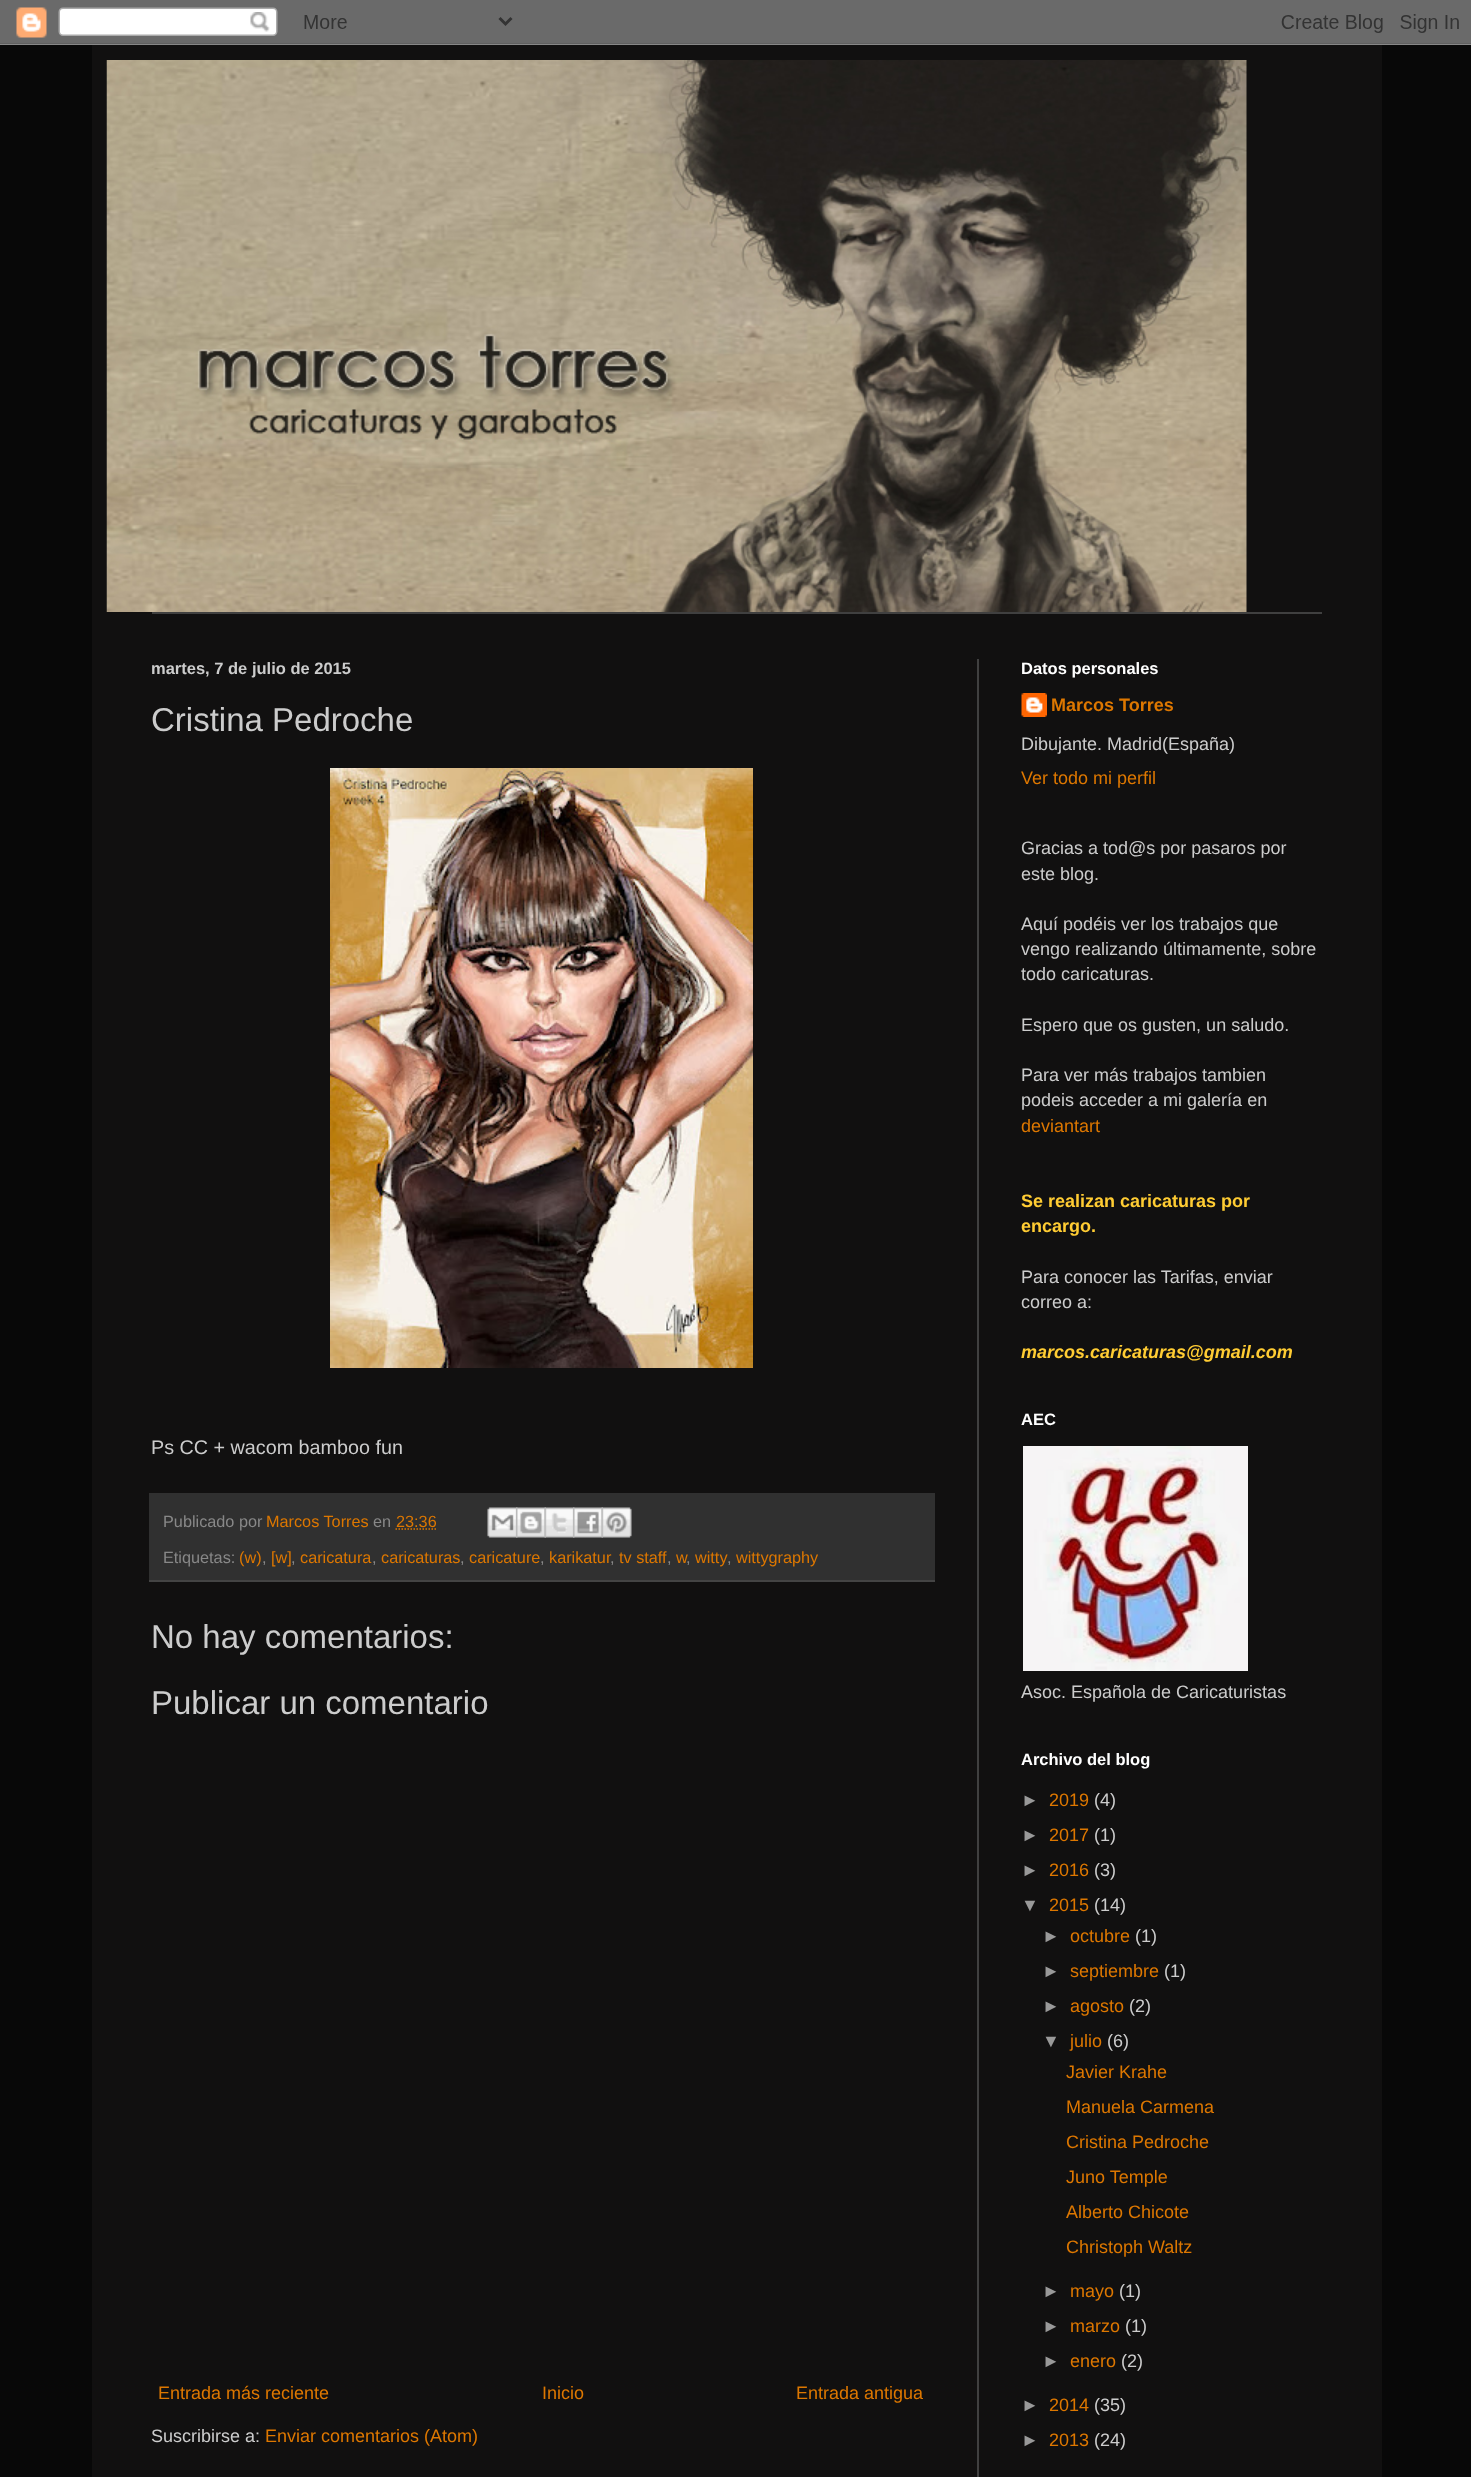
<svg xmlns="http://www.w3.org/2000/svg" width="1471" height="2477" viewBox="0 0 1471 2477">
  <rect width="100%" height="100%" fill="#080808"/>
  <image x="0" y="0" width="1471" height="45" href="img/1.png"/>
  <path d="M92 45h1290v2432H92z" fill="#111010"/>
  <image x="106" y="60" width="1141" height="552" href="img/2.png"/>
  <path d="M152 612h1170v2H152z" fill="#404040"/>
  <path d="M977 659h2v1818H977z" fill="#404040"/>
  <image x="330" y="768" width="423" height="600" href="img/3.png"/>
  <path d="M149 1493h786v87H149z" fill="#303030"/>
  <path d="M149 1580h786v2H149z" fill="#444"/>
  <path d="M395.5 1529H436" fill="none" stroke="#d70" stroke-width="1.5" stroke-dasharray="1.5 1.5"/>
  <image x="487" y="1507" width="31" height="31" href="img/4.png"/>
  <image x="516" y="1507" width="30" height="31" href="img/5.png"/>
  <image x="544" y="1507" width="31" height="31" href="img/6.png"/>
  <image x="573" y="1507" width="30" height="31" href="img/7.png"/>
  <image x="601" y="1507" width="31" height="31" href="img/8.png"/>
  <image x="1021" y="693" width="26" height="24" href="img/9.png"/>
  <image x="1023" y="1446" width="225" height="225" href="img/10.png"/>
  <text x="151" y="674" font-family="Liberation Sans" font-size="16.5" font-weight="bold" fill="#ccc">martes, 7 de julio de 2015</text>
  <text x="151" y="731" font-family="Liberation Sans" font-size="33" fill="#ccc">Cristina Pedroche</text>
  <text x="151" y="1454" font-family="Liberation Sans" font-size="19.75" fill="#ccc">Ps CC + wacom bamboo fun</text>
  <text x="163" y="1527" font-family="Liberation Sans" font-size="16.25" fill="#888">Publicado por</text>
  <text x="266" y="1527" font-family="Liberation Sans" font-size="16.25" fill="#d70">Marcos Torres</text>
  <text x="373" y="1527" font-family="Liberation Sans" font-size="16.25" fill="#888">en</text>
  <text x="396" y="1527" font-family="Liberation Sans" font-size="16.25" fill="#d70">23:36</text>
  <text x="163" y="1563" font-family="Liberation Sans" font-size="16.25" fill="#888">Etiquetas:</text>
  <g font-family="Liberation Sans" font-size="16.25" fill="#d70">
    <text x="239" y="1563">(w)</text>
    <text x="271" y="1563">[w]</text>
    <text x="300" y="1563">caricatura</text>
    <text x="381" y="1563">caricaturas</text>
    <text x="469" y="1563">caricature</text>
    <text x="549" y="1563">karikatur</text>
    <text x="619" y="1563">tv staff</text>
    <text x="676" y="1563">w</text>
    <text x="695" y="1563">witty</text>
    <text x="736" y="1563">wittygraphy</text>
  </g>
  <g font-family="Liberation Sans" font-size="16.25" fill="#888">
    <text x="262" y="1563">,</text>
    <text x="291" y="1563">,</text>
    <text x="372" y="1563">,</text>
    <text x="460" y="1563">,</text>
    <text x="540" y="1563">,</text>
    <text x="610" y="1563">,</text>
    <text x="667" y="1563">,</text>
    <text x="686" y="1563">,</text>
    <text x="727" y="1563">,</text>
  </g>
  <g font-family="Liberation Sans" font-size="33" fill="#ccc">
    <text x="151" y="1648">No hay comentarios:</text>
    <text x="151" y="1714">Publicar un comentario</text>
  </g>
  <g font-family="Liberation Sans" font-size="18" fill="#d70">
    <text x="158" y="2399">Entrada más reciente</text>
    <text x="542" y="2399">Inicio</text>
    <text x="796" y="2399">Entrada antigua</text>
  </g>
  <text x="151" y="2442" font-family="Liberation Sans" font-size="18" fill="#ccc">Suscribirse a:</text>
  <text x="265" y="2442" font-family="Liberation Sans" font-size="18" fill="#d70">Enviar comentarios (Atom)</text>
  <text x="1021" y="674" font-family="Liberation Sans" font-size="16.5" font-weight="bold" fill="#fff">Datos personales</text>
  <text x="1051" y="711" font-family="Liberation Sans" font-size="18" font-weight="bold" fill="#d70">Marcos Torres</text>
  <text x="1021" y="750" font-family="Liberation Sans" font-size="18" fill="#ccc">Dibujante. Madrid(España)</text>
  <text x="1021" y="784" font-family="Liberation Sans" font-size="18" fill="#d70">Ver todo mi perfil</text>
  <g font-family="Liberation Sans" font-size="18" fill="#ccc">
    <text x="1021" y="854">Gracias a tod@s por pasaros por</text>
    <text x="1021" y="880">este blog.</text>
    <text x="1021" y="930">Aquí podéis ver los trabajos que</text>
    <text x="1021" y="955">vengo realizando últimamente, sobre</text>
    <text x="1021" y="980">todo caricaturas.</text>
    <text x="1021" y="1031">Espero que os gusten, un saludo.</text>
    <text x="1021" y="1081">Para ver más trabajos tambien</text>
    <text x="1021" y="1106">podeis acceder a mi galería en</text>
  </g>
  <text x="1021" y="1132" font-family="Liberation Sans" font-size="18" fill="#d70">deviantart</text>
  <g font-family="Liberation Sans" font-size="18" font-weight="bold" fill="#fc3">
    <text x="1021" y="1207">Se realizan caricaturas por</text>
    <text x="1021" y="1232">encargo.</text>
  </g>
  <g font-family="Liberation Sans" font-size="18" fill="#ccc">
    <text x="1021" y="1283">Para conocer las Tarifas, enviar</text>
    <text x="1021" y="1308">correo a:</text>
  </g>
  <text x="1021" y="1358" font-family="Liberation Sans" font-size="18" font-weight="bold" font-style="italic" fill="#fc3">marcos.caricaturas@gmail.com</text>
  <text x="1021" y="1425" font-family="Liberation Sans" font-size="16.5" font-weight="bold" fill="#fff">AEC</text>
  <text x="1021" y="1698" font-family="Liberation Sans" font-size="18" fill="#ccc">Asoc. Española de Caricaturistas</text>
  <text x="1021" y="1765" font-family="Liberation Sans" font-size="16.5" font-weight="bold" fill="#fff">Archivo del blog</text>
  <text x="1021" y="1806" font-family="Liberation Sans" font-size="18" fill="#999">►</text>
  <text x="1049" y="1806" font-family="Liberation Sans" font-size="18" fill="#d70">2019</text>
  <text x="1094" y="1806" font-family="Liberation Sans" font-size="18" fill="#ccc">(4)</text>
  <text x="1021" y="1841" font-family="Liberation Sans" font-size="18" fill="#999">►</text>
  <text x="1049" y="1841" font-family="Liberation Sans" font-size="18" fill="#d70">2017</text>
  <text x="1094" y="1841" font-family="Liberation Sans" font-size="18" fill="#ccc">(1)</text>
  <text x="1021" y="1876" font-family="Liberation Sans" font-size="18" fill="#999">►</text>
  <text x="1049" y="1876" font-family="Liberation Sans" font-size="18" fill="#d70">2016</text>
  <text x="1094" y="1876" font-family="Liberation Sans" font-size="18" fill="#ccc">(3)</text>
  <text x="1021" y="1911" font-family="Liberation Sans" font-size="18" fill="#999">▼</text>
  <text x="1049" y="1911" font-family="Liberation Sans" font-size="18" fill="#d70">2015</text>
  <text x="1094" y="1911" font-family="Liberation Sans" font-size="18" fill="#ccc">(14)</text>
  <text x="1042" y="1942" font-family="Liberation Sans" font-size="18" fill="#999">►</text>
  <text x="1070" y="1942" font-family="Liberation Sans" font-size="18" fill="#d70">octubre</text>
  <text x="1135" y="1942" font-family="Liberation Sans" font-size="18" fill="#ccc">(1)</text>
  <text x="1042" y="1977" font-family="Liberation Sans" font-size="18" fill="#999">►</text>
  <text x="1070" y="1977" font-family="Liberation Sans" font-size="18" fill="#d70">septiembre</text>
  <text x="1164" y="1977" font-family="Liberation Sans" font-size="18" fill="#ccc">(1)</text>
  <text x="1042" y="2012" font-family="Liberation Sans" font-size="18" fill="#999">►</text>
  <text x="1070" y="2012" font-family="Liberation Sans" font-size="18" fill="#d70">agosto</text>
  <text x="1129" y="2012" font-family="Liberation Sans" font-size="18" fill="#ccc">(2)</text>
  <text x="1042" y="2047" font-family="Liberation Sans" font-size="18" fill="#999">▼</text>
  <text x="1070" y="2047" font-family="Liberation Sans" font-size="18" fill="#d70">julio</text>
  <text x="1107" y="2047" font-family="Liberation Sans" font-size="18" fill="#ccc">(6)</text>
  <g font-family="Liberation Sans" font-size="18" fill="#d70">
    <text x="1066" y="2078">Javier Krahe</text>
    <text x="1066" y="2113">Manuela Carmena</text>
    <text x="1066" y="2148">Cristina Pedroche</text>
    <text x="1066" y="2183">Juno Temple</text>
    <text x="1066" y="2218">Alberto Chicote</text>
    <text x="1066" y="2253">Christoph Waltz</text>
  </g>
  <text x="1042" y="2297" font-family="Liberation Sans" font-size="18" fill="#999">►</text>
  <text x="1070" y="2297" font-family="Liberation Sans" font-size="18" fill="#d70">mayo</text>
  <text x="1119" y="2297" font-family="Liberation Sans" font-size="18" fill="#ccc">(1)</text>
  <text x="1042" y="2332" font-family="Liberation Sans" font-size="18" fill="#999">►</text>
  <text x="1070" y="2332" font-family="Liberation Sans" font-size="18" fill="#d70">marzo</text>
  <text x="1125" y="2332" font-family="Liberation Sans" font-size="18" fill="#ccc">(1)</text>
  <text x="1042" y="2367" font-family="Liberation Sans" font-size="18" fill="#999">►</text>
  <text x="1070" y="2367" font-family="Liberation Sans" font-size="18" fill="#d70">enero</text>
  <text x="1121" y="2367" font-family="Liberation Sans" font-size="18" fill="#ccc">(2)</text>
  <text x="1021" y="2411" font-family="Liberation Sans" font-size="18" fill="#999">►</text>
  <text x="1049" y="2411" font-family="Liberation Sans" font-size="18" fill="#d70">2014</text>
  <text x="1094" y="2411" font-family="Liberation Sans" font-size="18" fill="#ccc">(35)</text>
  <text x="1021" y="2446" font-family="Liberation Sans" font-size="18" fill="#999">►</text>
  <text x="1049" y="2446" font-family="Liberation Sans" font-size="18" fill="#d70">2013</text>
  <text x="1094" y="2446" font-family="Liberation Sans" font-size="18" fill="#ccc">(24)</text>
</svg>
